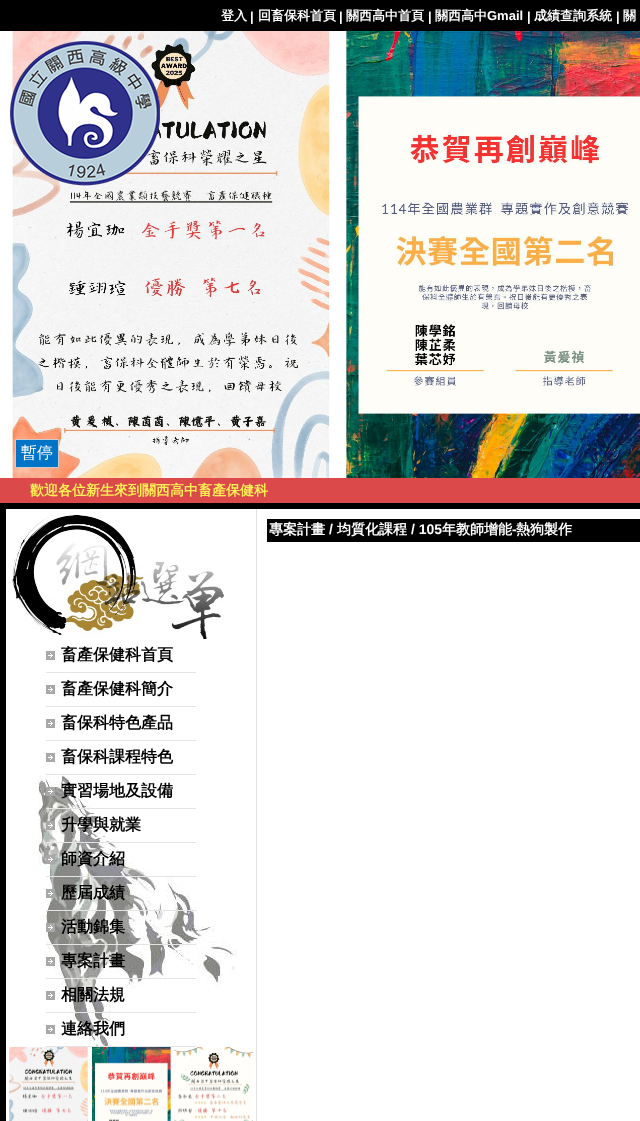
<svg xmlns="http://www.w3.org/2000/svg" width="640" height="1121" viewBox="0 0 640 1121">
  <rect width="100%" height="100%" fill="#fff"/>
  <path d="M0 0h640v31H0z" fill="#000"/>
  <image x="8" y="31" width="632" height="447" href="img/1.png"/>
  <image x="10" y="41" width="150" height="145" href="img/2.png"/>
  <path d="M15.5 439.5h43v28H15.5z" fill="#0074c7" stroke="#ccc"/>
  <path d="M0 478h640v25H0z" fill="#dc494a"/>
  <path d="M3 506h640v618H3z" fill="none" stroke="#000" stroke-width="6"/>
  <path d="M256 509h1v612H256z" fill="#e2e2e2"/>
  <path d="M267 519h373v23H267z" fill="#000"/>
  <image x="38" y="773" width="200" height="274" href="img/3.png"/>
  <image x="9" y="515" width="215" height="124" href="img/4.png"/>
  <path d="M46 672h150v1H46z" fill="#e4e4e4"/>
  <image x="46" y="651" width="9" height="9" href="img/5.png"/>
  <path d="M46 706h150v1H46z" fill="#e4e4e4"/>
  <image x="46" y="685" width="9" height="9" href="img/5.png"/>
  <path d="M46 740h150v1H46z" fill="#e4e4e4"/>
  <image x="46" y="719" width="9" height="9" href="img/5.png"/>
  <path d="M46 774h150v1H46z" fill="#e4e4e4"/>
  <image x="46" y="753" width="9" height="9" href="img/5.png"/>
  <path d="M46 808h150v1H46z" fill="#e4e4e4"/>
  <image x="46" y="787" width="9" height="9" href="img/5.png"/>
  <path d="M46 842h150v1H46z" fill="#e4e4e4"/>
  <image x="46" y="821" width="9" height="9" href="img/5.png"/>
  <path d="M46 876h150v1H46z" fill="#e4e4e4"/>
  <image x="46" y="855" width="9" height="9" href="img/5.png"/>
  <path d="M46 910h150v1H46z" fill="#e4e4e4"/>
  <image x="46" y="889" width="9" height="9" href="img/5.png"/>
  <path d="M46 944h150v1H46z" fill="#e4e4e4"/>
  <image x="46" y="923" width="9" height="9" href="img/5.png"/>
  <path d="M46 978h150v1H46z" fill="#e4e4e4"/>
  <image x="46" y="957" width="9" height="9" href="img/5.png"/>
  <path d="M46 1012h150v1H46z" fill="#e4e4e4"/>
  <image x="46" y="991" width="9" height="9" href="img/5.png"/>
  <path d="M46 1046h150v1H46z" fill="#e4e4e4"/>
  <image x="46" y="1025" width="9" height="9" href="img/5.png"/>
  <image x="9" y="1047" width="244" height="74" href="img/6.png"/>
  <text x="221" y="20" font-family="WenQuanYi Zen Hei" font-size="13" font-weight="bold" fill="#fff">登入</text>
  <text x="250" y="21" font-family="Liberation Sans" font-size="13" font-weight="bold" fill="#fff">|</text>
  <text x="258" y="20" font-family="WenQuanYi Zen Hei" font-size="13" font-weight="bold" fill="#fff">回畜保科首頁</text>
  <text x="339" y="21" font-family="Liberation Sans" font-size="13" font-weight="bold" fill="#fff">|</text>
  <text x="346" y="20" font-family="WenQuanYi Zen Hei" font-size="13" font-weight="bold" fill="#fff">關西高中首頁</text>
  <text x="428" y="21" font-family="Liberation Sans" font-size="13" font-weight="bold" fill="#fff">|</text>
  <text x="435" y="20" font-family="WenQuanYi Zen Hei" font-size="13" font-weight="bold" fill="#fff">關西高中</text>
  <g font-family="Liberation Sans" font-size="13" font-weight="bold" fill="#fff">
    <text x="487" y="20">Gmail</text>
    <text x="527" y="21">|</text>
  </g>
  <text x="534" y="20" font-family="WenQuanYi Zen Hei" font-size="13" font-weight="bold" fill="#fff">成績查詢系統</text>
  <text x="616" y="21" font-family="Liberation Sans" font-size="13" font-weight="bold" fill="#fff">|</text>
  <text x="623" y="20" font-family="WenQuanYi Zen Hei" font-size="13" font-weight="bold" fill="#fff">關</text>
  <text x="21" y="458" font-family="WenQuanYi Zen Hei" font-size="16" font-weight="500" fill="#fff">暫停</text>
  <text x="30" y="495" font-family="WenQuanYi Zen Hei" font-size="14" font-weight="bold" fill="#fff155">歡迎各位新生來到關西高中畜產保健科</text>
  <text x="269" y="534" font-family="WenQuanYi Zen Hei" font-size="14" font-weight="bold" fill="#fff">專案計畫</text>
  <text x="329" y="534" font-family="Liberation Sans" font-size="14" font-weight="bold" fill="#fff">/</text>
  <text x="337" y="534" font-family="WenQuanYi Zen Hei" font-size="14" font-weight="bold" fill="#fff">均質化課程</text>
  <text x="411" y="534" font-family="Liberation Sans" font-size="14" font-weight="bold" fill="#fff">/ 105</text>
  <text x="442" y="534" font-family="WenQuanYi Zen Hei" font-size="14" font-weight="bold" fill="#fff">年教師增能</text>
  <text x="512" y="534" font-family="Liberation Sans" font-size="14" font-weight="bold" fill="#fff">-</text>
  <text x="516" y="534" font-family="WenQuanYi Zen Hei" font-size="14" font-weight="bold" fill="#fff">熱狗製作</text>
  <g font-family="WenQuanYi Zen Hei" font-size="16" font-weight="bold" fill="#000">
    <text x="61" y="660">畜產保健科首頁</text>
    <text x="61" y="694">畜產保健科簡介</text>
    <text x="61" y="728">畜保科特色產品</text>
    <text x="61" y="762">畜保科課程特色</text>
    <text x="61" y="796">實習場地及設備</text>
    <text x="61" y="830">升學與就業</text>
    <text x="61" y="864">師資介紹</text>
    <text x="61" y="898">歷屆成績</text>
    <text x="61" y="932">活動錦集</text>
    <text x="61" y="966">專案計畫</text>
    <text x="61" y="1000">相關法規</text>
    <text x="61" y="1034">連絡我們</text>
  </g>
</svg>
